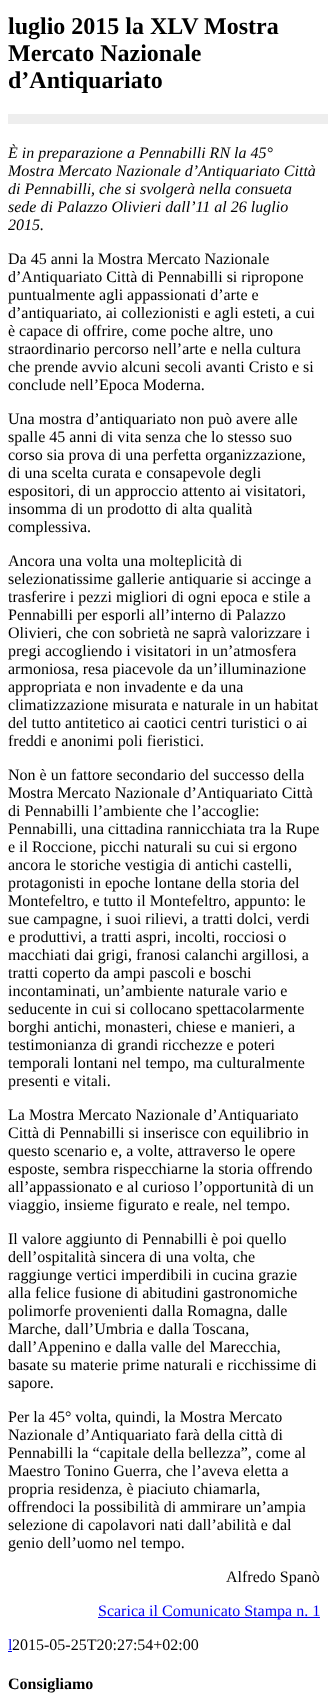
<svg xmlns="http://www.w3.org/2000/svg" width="328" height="1701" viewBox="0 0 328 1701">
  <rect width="100%" height="100%" fill="#fff"/>
  <path d="M8 114h320v10H8z" fill="#eee"/>
  <path d="M98 1617h222v1H98z" fill="#00e"/>
  <path d="M8 1651h4v1H8z" fill="#00e"/>
  <g font-family="Liberation Serif" font-size="24" font-weight="bold" fill="#000">
    <text x="8" y="34">luglio 2015 la XLV Mostra</text>
    <text x="8" y="61">Mercato Nazionale</text>
    <text x="8" y="88">d’Antiquariato</text>
  </g>
  <g font-family="Liberation Serif" font-size="16" font-style="italic" fill="#000">
    <text x="8" y="158">È in preparazione a Pennabilli RN la 45°</text>
    <text x="8" y="176">Mostra Mercato Nazionale d’Antiquariato Città</text>
    <text x="8" y="194">di Pennabilli, che si svolgerà nella consueta</text>
    <text x="8" y="212">sede di Palazzo Olivieri dall’11 al 26 luglio</text>
    <text x="8" y="230">2015.</text>
  </g>
  <g font-family="Liberation Serif" font-size="16" fill="#000">
    <text x="8" y="264">Da 45 anni la Mostra Mercato Nazionale</text>
    <text x="8" y="282">d’Antiquariato Città di Pennabilli si ripropone</text>
    <text x="8" y="300">puntualmente agli appassionati d’arte e</text>
    <text x="8" y="318">d’antiquariato, ai collezionisti e agli esteti, a cui</text>
    <text x="8" y="336">è capace di offrire, come poche altre, uno</text>
    <text x="8" y="354">straordinario percorso nell’arte e nella cultura</text>
    <text x="8" y="372">che prende avvio alcuni secoli avanti Cristo e si</text>
    <text x="8" y="390">conclude nell’Epoca Moderna.</text>
    <text x="8" y="424">Una mostra d’antiquariato non può avere alle</text>
    <text x="8" y="442">spalle 45 anni di vita senza che lo stesso suo</text>
    <text x="8" y="460">corso sia prova di una perfetta organizzazione,</text>
    <text x="8" y="478">di una scelta curata e consapevole degli</text>
    <text x="8" y="496">espositori, di un approccio attento ai visitatori,</text>
    <text x="8" y="514">insomma di un prodotto di alta qualità</text>
    <text x="8" y="532">complessiva.</text>
    <text x="8" y="566">Ancora una volta una molteplicità di</text>
    <text x="8" y="584">selezionatissime gallerie antiquarie si accinge a</text>
    <text x="8" y="602">trasferire i pezzi migliori di ogni epoca e stile a</text>
    <text x="8" y="620">Pennabilli per esporli all’interno di Palazzo</text>
    <text x="8" y="638">Olivieri, che con sobrietà ne saprà valorizzare i</text>
    <text x="8" y="656">pregi accogliendo i visitatori in un’atmosfera</text>
    <text x="8" y="674">armoniosa, resa piacevole da un’illuminazione</text>
    <text x="8" y="692">appropriata e non invadente e da una</text>
    <text x="8" y="710">climatizzazione misurata e naturale in un habitat</text>
    <text x="8" y="728">del tutto antitetico ai caotici centri turistici o ai</text>
    <text x="8" y="746">freddi e anonimi poli fieristici.</text>
    <text x="8" y="780">Non è un fattore secondario del successo della</text>
    <text x="8" y="798">Mostra Mercato Nazionale d’Antiquariato Città</text>
    <text x="8" y="816">di Pennabilli l’ambiente che l’accoglie:</text>
    <text x="8" y="834">Pennabilli, una cittadina rannicchiata tra la Rupe</text>
    <text x="8" y="852">e il Roccione, picchi naturali su cui si ergono</text>
    <text x="8" y="870">ancora le storiche vestigia di antichi castelli,</text>
    <text x="8" y="888">protagonisti in epoche lontane della storia del</text>
    <text x="8" y="906">Montefeltro, e tutto il Montefeltro, appunto: le</text>
    <text x="8" y="924">sue campagne, i suoi rilievi, a tratti dolci, verdi</text>
    <text x="8" y="942">e produttivi, a tratti aspri, incolti, rocciosi o</text>
    <text x="8" y="960">macchiati dai grigi, franosi calanchi argillosi, a</text>
    <text x="8" y="978">tratti coperto da ampi pascoli e boschi</text>
    <text x="8" y="996">incontaminati, un’ambiente naturale vario e</text>
    <text x="8" y="1014">seducente in cui si collocano spettacolarmente</text>
    <text x="8" y="1032">borghi antichi, monasteri, chiese e manieri, a</text>
    <text x="8" y="1050">testimonianza di grandi ricchezze e poteri</text>
    <text x="8" y="1068">temporali lontani nel tempo, ma culturalmente</text>
    <text x="8" y="1086">presenti e vitali.</text>
    <text x="8" y="1120">La Mostra Mercato Nazionale d’Antiquariato</text>
    <text x="8" y="1138">Città di Pennabilli si inserisce con equilibrio in</text>
    <text x="8" y="1156">questo scenario e, a volte, attraverso le opere</text>
    <text x="8" y="1174">esposte, sembra rispecchiarne la storia offrendo</text>
    <text x="8" y="1192">all’appassionato e al curioso l’opportunità di un</text>
    <text x="8" y="1210">viaggio, insieme figurato e reale, nel tempo.</text>
    <text x="8" y="1244">Il valore aggiunto di Pennabilli è poi quello</text>
    <text x="8" y="1262">dell’ospitalità sincera di una volta, che</text>
    <text x="8" y="1280">raggiunge vertici imperdibili in cucina grazie</text>
    <text x="8" y="1298">alla felice fusione di abitudini gastronomiche</text>
    <text x="8" y="1316">polimorfe provenienti dalla Romagna, dalle</text>
    <text x="8" y="1334">Marche, dall’Umbria e dalla Toscana,</text>
    <text x="8" y="1352">dall’Appenino e dalla valle del Marecchia,</text>
    <text x="8" y="1370">basate su materie prime naturali e ricchissime di</text>
    <text x="8" y="1388">sapore.</text>
    <text x="8" y="1422">Per la 45° volta, quindi, la Mostra Mercato</text>
    <text x="8" y="1440">Nazionale d’Antiquariato farà della città di</text>
    <text x="8" y="1458">Pennabilli la “capitale della bellezza”, come al</text>
    <text x="8" y="1476">Maestro Tonino Guerra, che l’aveva eletta a</text>
    <text x="8" y="1494">propria residenza, è piaciuto chiamarla,</text>
    <text x="8" y="1512">offrendoci la possibilità di ammirare un’ampia</text>
    <text x="8" y="1530">selezione di capolavori nati dall’abilità e dal</text>
    <text x="8" y="1548">genio dell’uomo nel tempo.</text>
    <text x="226" y="1582">Alfredo Spanò</text>
  </g>
  <g font-family="Liberation Serif" font-size="16" fill="#00e">
    <text x="98" y="1616">Scarica il Comunicato Stampa n. 1</text>
    <text x="8" y="1650">l</text>
  </g>
  <text x="12" y="1650" font-family="Liberation Serif" font-size="16" fill="#000">2015-05-25T20:27:54+02:00</text>
  <text x="8" y="1689" font-family="Liberation Serif" font-size="16" font-weight="bold" fill="#000">Consigliamo</text>
</svg>
